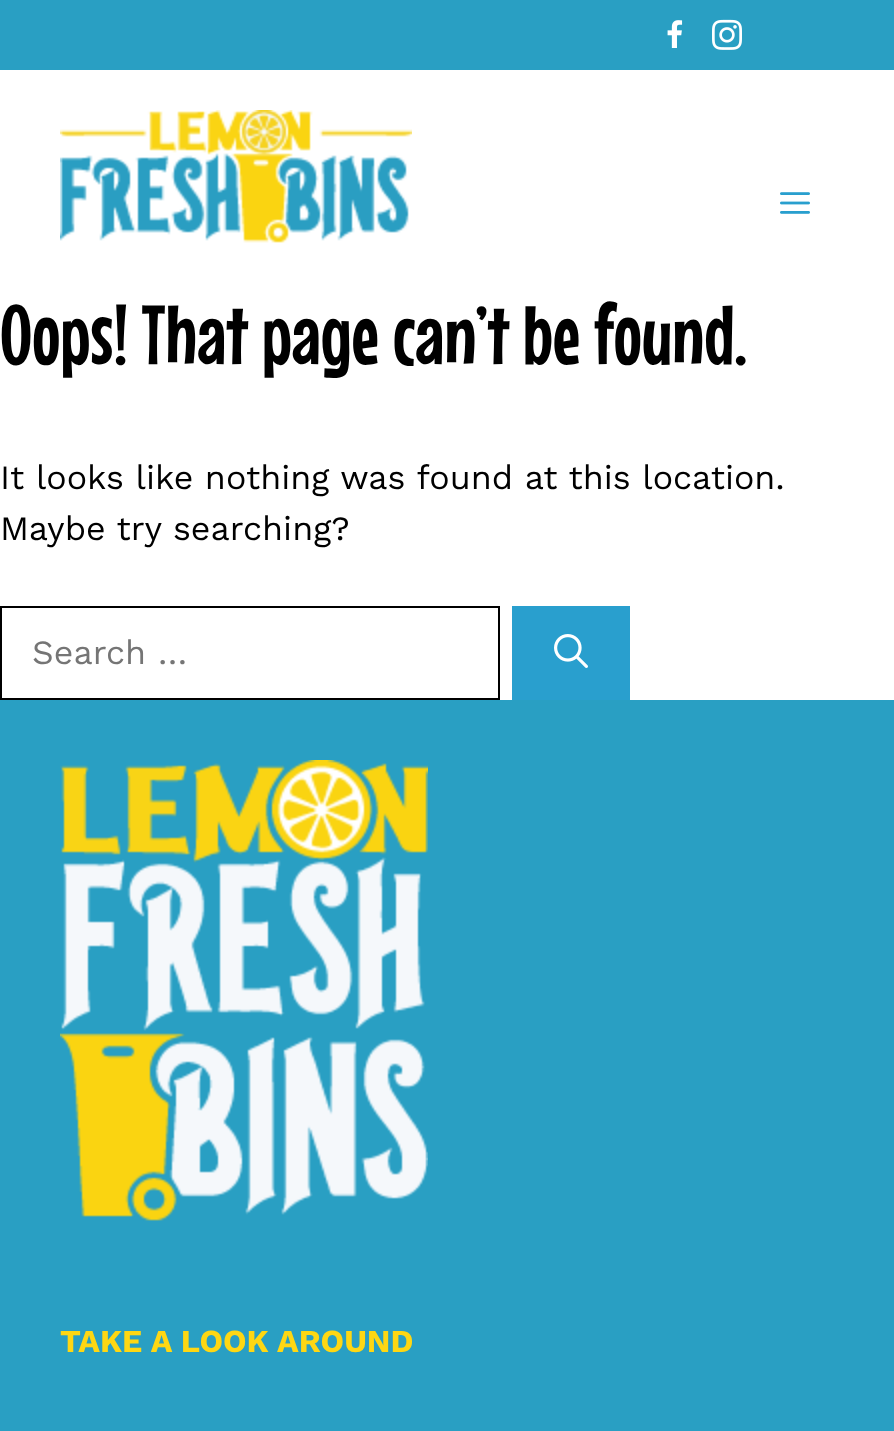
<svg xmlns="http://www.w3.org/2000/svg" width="894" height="1431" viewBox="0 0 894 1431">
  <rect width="100%" height="100%" fill="#fff"/>
  <path d="M0 0h894v70H0z" fill="#299fc3"/>
  <image x="667" y="20" width="16" height="28" href="img/1.png"/>
  <image x="712" y="19" width="30" height="31" href="img/2.png"/>
  <image x="60" y="110" width="352" height="133" href="img/3.png"/>
  <image x="780" y="192" width="30" height="22" href="img/4.png"/>
  <path d="M1 607h498v92H1z" fill="none" stroke="#000" stroke-width="2"/>
  <path d="M512 606h118v94H512z" fill="#299fce"/>
  <image x="554" y="634" width="34" height="34" href="img/5.png"/>
  <path d="M0 700h894v731H0z" fill="#299fc3"/>
  <image x="60" y="760" width="368" height="461" href="img/6.png"/>
  <text x="0" y="364" font-family="Mouse Memoirs" font-size="84" fill="#000">Oops! That page can’t be found.</text>
  <g font-family="Work Sans" font-size="34" fill="#000">
    <text x="0" y="489">It looks like nothing was found at this location.</text>
    <text x="0" y="540">Maybe try searching?</text>
  </g>
  <text x="32" y="664" font-family="Work Sans" font-size="34" fill="#757575">Search …</text>
  <text x="60" y="1352" font-family="Work Sans" font-size="32" font-weight="bold" fill="#fed713">TAKE A LOOK AROUND</text>
</svg>
